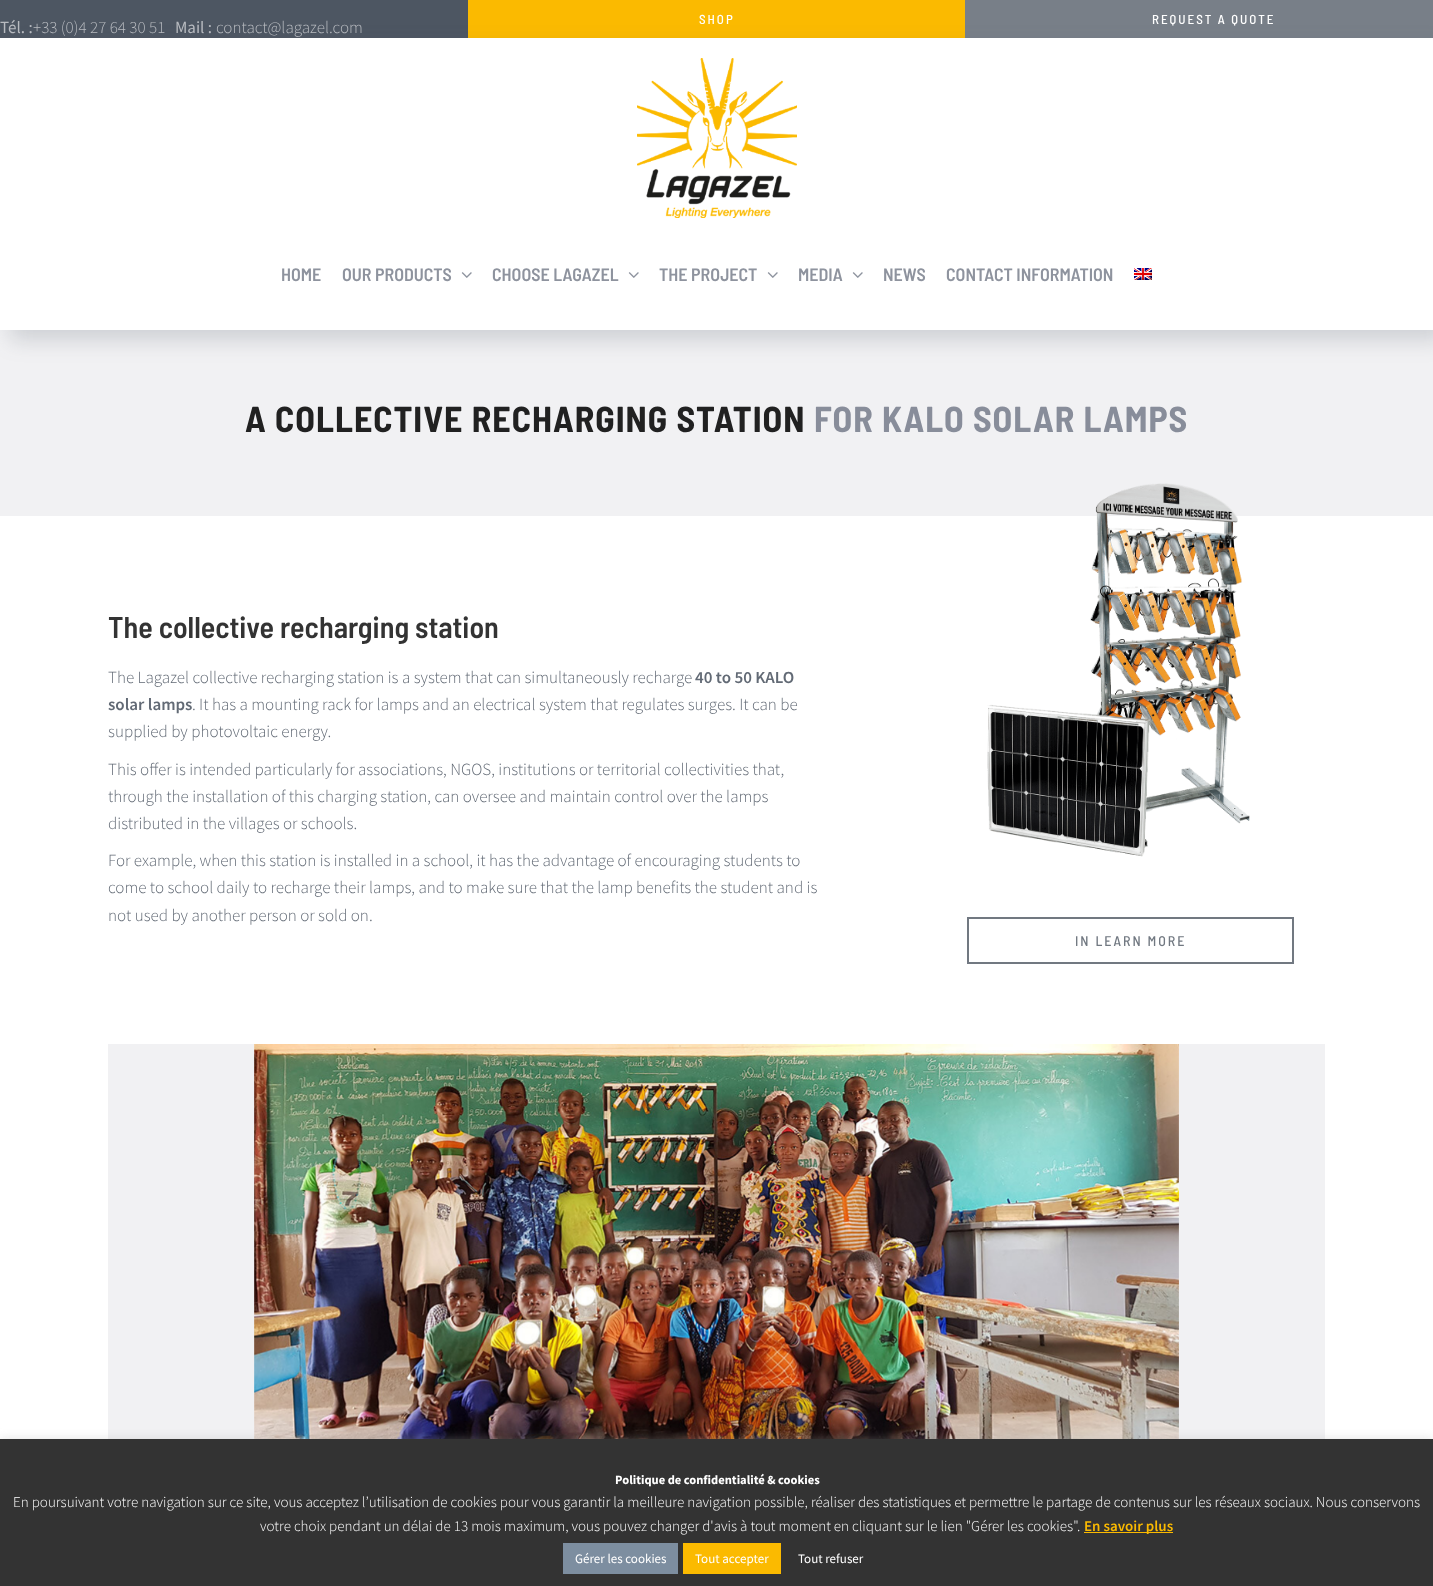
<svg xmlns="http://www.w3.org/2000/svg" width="1433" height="1586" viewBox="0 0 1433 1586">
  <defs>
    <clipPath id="clip1"><path d="M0 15H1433V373H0ZM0 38H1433V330H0Z" clip-rule="evenodd"/></clipPath>
  </defs>
  <rect width="100%" height="100%" fill="#fff"/>
  <path d="M0 0h468v38H0z" fill="#4d5662"/>
  <path d="M468 0h497v38H468z" fill="#fbba00"/>
  <path d="M965 0h468v38H965z" fill="#787f88"/>
  <path d="M0 330h1433v186H0z" fill="#f1f1f3"/>
  <g clip-path="url(#clip1)">
    <path d="M10 48h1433v292H10z" fill="#4d566236" filter="blur(10.5px)"/>
  </g>
  <image x="637" y="58" width="160" height="160" href="img/1.png"/>
  <image x="461" y="272" width="11" height="6" href="img/2.png"/>
  <image x="628" y="272" width="11" height="6" href="img/2.png"/>
  <image x="767" y="272" width="11" height="6" href="img/2.png"/>
  <image x="852" y="272" width="11" height="6" href="img/2.png"/>
  <image x="1134" y="268" width="18" height="12" href="img/3.png"/>
  <image x="987" y="483" width="263" height="374" href="img/4.png"/>
  <path d="M968 918h325v45H968z" fill="none" stroke="#717881" stroke-width="2"/>
  <path d="M108 1044h1217v395H108z" fill="#f1f1f3"/>
  <image x="254" y="1044" width="925" height="395" href="img/5.png"/>
  <path d="M0 1438h1433v147H0z" fill="#acabab4d" filter="blur(5px)"/>
  <path d="M0 1439h1433v147H0z" fill="#333"/>
  <path d="M1084 1532h89v1H1084z" fill="#fbba00"/>
  <path d="M563 1543h115v31H563z" fill="#7d8ea0"/>
  <path d="M683 1543h98v31H683z" fill="#fbba00"/>
  <text x="0" y="33" font-family="Source Sans Pro" font-size="17" fill="#b8bbc0">Tél. :</text>
  <text x="33" y="33" font-family="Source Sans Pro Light" font-size="17" font-weight="300" fill="#b8bbc0">+33 (0)4 27 64 30 51</text>
  <text x="175" y="33" font-family="Source Sans Pro" font-size="17" fill="#b8bbc0">Mail :</text>
  <text x="216" y="33" font-family="Source Sans Pro Light" font-size="17" font-weight="300" fill="#b8bbc0">contact@lagazel.com</text>
  <g font-family="Barlow Semi Condensed" font-size="13" font-weight="500" letter-spacing="2" fill="#fff">
    <text x="699" y="24">SHOP</text>
    <text x="1152" y="24">REQUEST A QUOTE</text>
  </g>
  <g font-family="Barlow Semi Condensed" font-size="18" font-weight="600" fill="#8e939e">
    <text x="281" y="281">HOME</text>
    <text x="342" y="281">OUR PRODUCTS</text>
    <text x="492" y="281">CHOOSE LAGAZEL</text>
    <text x="659" y="281">THE PROJECT</text>
    <text x="798" y="281">MEDIA</text>
    <text x="883" y="281">NEWS</text>
    <text x="946" y="281">CONTACT INFORMATION</text>
  </g>
  <text x="245" y="432" font-family="Barlow Semi Condensed" font-size="36" font-weight="bold" letter-spacing="1" fill="#212121">A COLLECTIVE RECHARGING STATION</text>
  <text x="814" y="432" font-family="Barlow Semi Condensed" font-size="36" font-weight="bold" letter-spacing="1" fill="#888d9a">FOR KALO SOLAR LAMPS</text>
  <text x="108" y="638" font-family="Barlow Semi Condensed" font-size="30" font-weight="600" fill="#333">The collective recharging station</text>
  <text x="108" y="683" font-family="Source Sans Pro Light" font-size="17" font-weight="300" fill="#626a75">The Lagazel collective recharging station is a system that can simultaneously recharge</text>
  <g font-family="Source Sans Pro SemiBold" font-size="17" font-weight="600" fill="#626a75">
    <text x="695" y="683">40 to 50 KALO</text>
    <text x="108" y="710">solar lamps</text>
  </g>
  <g font-family="Source Sans Pro Light" font-size="17" font-weight="300" fill="#626a75">
    <text x="192" y="710">. It has a mounting rack for lamps and an electrical system that regulates surges. It can be</text>
    <text x="108" y="737">supplied by photovoltaic energy.</text>
    <text x="108" y="775">This offer is intended particularly for associations, NGOS, institutions or territorial collectivities that,</text>
    <text x="108" y="802">through the installation of this charging station, can oversee and maintain control over the lamps</text>
    <text x="108" y="829">distributed in the villages or schools.</text>
    <text x="108" y="866">For example, when this station is installed in a school, it has the advantage of encouraging students to</text>
    <text x="108" y="893">come to school daily to recharge their lamps, and to make sure that the lamp benefits the student and is</text>
    <text x="108" y="921">not used by another person or sold on.</text>
  </g>
  <text x="1075" y="946" font-family="Barlow Semi Condensed" font-size="14" font-weight="500" letter-spacing="2" fill="#717881">IN LEARN MORE</text>
  <text x="615" y="1484" font-family="Source Sans Pro" font-size="12.5" font-weight="bold" fill="#fff">Politique de confidentialité &amp; cookies</text>
  <g font-family="Source Sans Pro Light" font-size="15" font-weight="300" fill="#fff">
    <text x="13" y="1507">En poursuivant votre navigation sur ce site, vous acceptez l’utilisation de cookies pour vous garantir la meilleure navigation possible, réaliser des statistiques et permettre le partage de contenus sur les réseaux sociaux. Nous conservons</text>
    <text x="260" y="1531">votre choix pendant un délai de 13 mois maximum, vous pouvez changer d'avis à tout moment en cliquant sur le lien "Gérer les cookies".</text>
  </g>
  <text x="1084" y="1531" font-family="Source Sans Pro SemiBold" font-size="15" font-weight="600" fill="#fbba00">En savoir plus</text>
  <g font-family="Source Sans Pro" font-size="13" fill="#fff">
    <text x="575" y="1563">Gérer les cookies</text>
    <text x="695" y="1563">Tout accepter</text>
    <text x="798" y="1563">Tout refuser</text>
  </g>
</svg>
